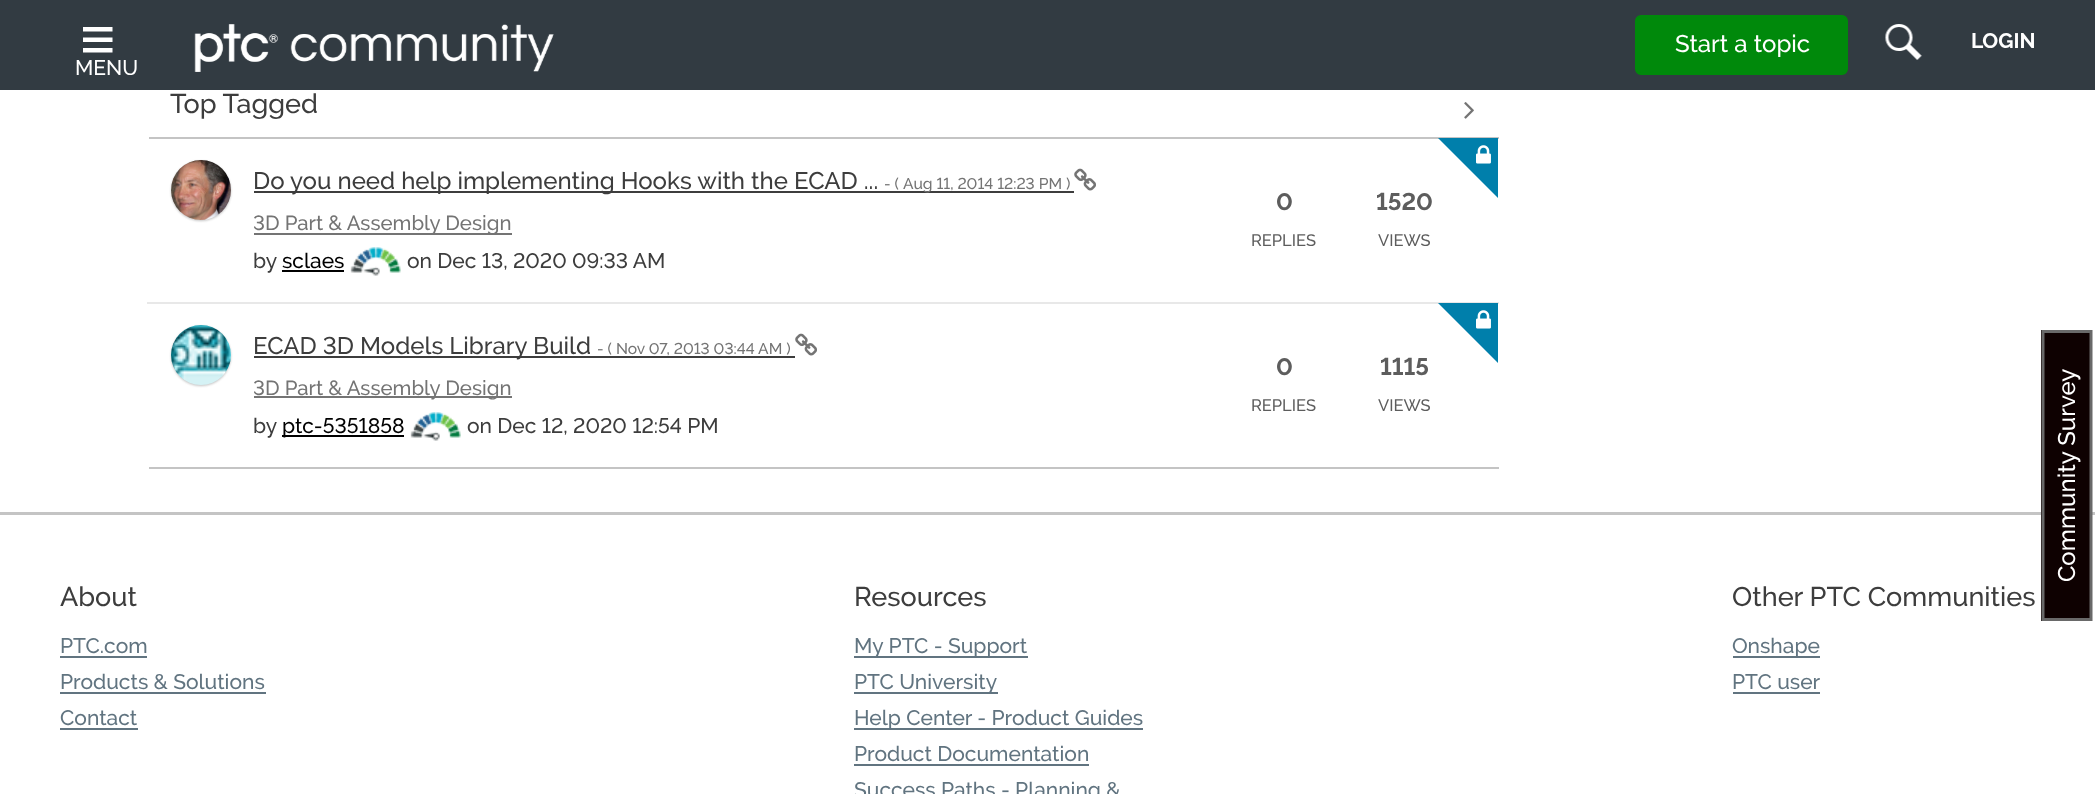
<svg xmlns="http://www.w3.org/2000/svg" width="2095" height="794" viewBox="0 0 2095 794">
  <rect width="100%" height="100%" fill="#fff"/>
  <path d="M0 0h2095v90H0z" fill="#323b42"/>
  <rect x="1636" y="16" width="211" height="58" rx="5" fill="#00890b" stroke="#00890b" stroke-width="2"/>
  <image x="1885" y="24" width="37" height="36" href="img/1.png"/>
  <image x="83" y="27" width="30" height="26" href="img/2.png"/>
  <image x="194" y="24" width="360" height="48" href="img/3.png"/>
  <path d="M149 137h1350v2H149z" fill="#c4c4c4"/>
  <image x="1464" y="102" width="10" height="17" href="img/4.png"/>
  <path d="M149 467h1350v2H149z" fill="#c4c4c4"/>
  <rect x="171" y="161" width="60" height="60" rx="30" fill="#c4c4c4" filter="blur(1px)"/>
  <image x="171" y="160" width="60" height="60" href="img/5.png"/>
  <path d="M254 191h820v2H254z" fill="#3d3d3d"/>
  <image x="1074" y="168" width="22" height="23" href="img/6.png"/>
  <path d="M254 233h258v2H254z" fill="#747474"/>
  <path d="M282 270h62v2H282z" fill="#000"/>
  <image x="350" y="247" width="51" height="29" href="img/7.png"/>
  <path d="M1438 138H1498V198Z" fill="#007fab"/>
  <image x="1476" y="145" width="15" height="19" href="img/8.png"/>
  <path d="M147 302h1352v2H147z" fill="#e8e8e8"/>
  <path d="M1438 303H1498V363Z" fill="#007fab"/>
  <image x="1476" y="310" width="15" height="19" href="img/8.png"/>
  <rect x="171" y="326" width="60" height="60" rx="30" fill="#c4c4c4" filter="blur(1px)"/>
  <image x="171" y="325" width="60" height="60" href="img/9.png"/>
  <path d="M254 356h541v2H254z" fill="#3d3d3d"/>
  <image x="795" y="333" width="22" height="23" href="img/6.png"/>
  <path d="M254 396h258v2H254z" fill="#747474"/>
  <path d="M282 435h122v2H282z" fill="#000"/>
  <image x="410" y="412" width="51" height="29" href="img/10.png"/>
  <path d="M0 512h2095v3H0z" fill="#c4c4c4"/>
  <path d="M60 656h87v2H60z" fill="#617480"/>
  <path d="M60 692h206v2H60z" fill="#617480"/>
  <path d="M60 728h78v2H60z" fill="#617480"/>
  <path d="M854 656h174v2H854z" fill="#617480"/>
  <path d="M854 692h144v2H854z" fill="#617480"/>
  <path d="M854 728h289v2H854z" fill="#617480"/>
  <path d="M854 764h235v2H854z" fill="#617480"/>
  <path d="M1733 656h87v2H1733z" fill="#617480"/>
  <path d="M1733 692h87v2H1733z" fill="#617480"/>
  <path d="M2041 330h49v291H2041z" fill="#0e0101"/>
  <path d="M2043 619.5V331.5H2091V619.5Z" fill="none" stroke="#696969" stroke-width="3"/>
  <text x="1675" y="52" font-family="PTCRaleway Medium" font-size="24" font-weight="500" fill="#fff">Start a topic</text>
  <text x="1971" y="48" font-family="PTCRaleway" font-size="21" font-weight="bold" fill="#fff">LOGIN</text>
  <text x="75" y="75" font-family="PTCRaleway Medium" font-size="21" font-weight="500" fill="#fff">MENU</text>
  <text x="170" y="113" font-family="PTCRaleway Medium" font-size="27" font-weight="500" fill="#3d3d3d">Top Tagged</text>
  <text x="253" y="189" font-family="PTCRaleway Medium" font-size="24" font-weight="500" fill="#3d3d3d">Do you need help implementing Hooks with the ECAD ...</text>
  <g font-family="PTCRaleway Medium" font-size="15.6" font-weight="500" fill="#747474">
    <text x="884" y="189">- (</text>
    <text x="903" y="189">Aug 11, 2014 12:23 PM )</text>
  </g>
  <text x="253" y="230" font-family="PTCRaleway Medium" font-size="20.4" font-weight="500" fill="#747474">3D Part &amp; Assembly Design</text>
  <text x="253" y="268" font-family="PTCRaleway Medium" font-size="21" font-weight="500" fill="#3d3d3d">by</text>
  <text x="282" y="268" font-family="PTCRaleway Medium" font-size="21" font-weight="500" fill="#000">sclaes</text>
  <text x="407" y="268" font-family="PTCRaleway Medium" font-size="21" font-weight="500" fill="#3d3d3d">on Dec 13, 2020 09:33 AM</text>
  <text x="1276" y="210" font-family="PTCRaleway" font-size="24" font-weight="bold" fill="#5d5d5d">0</text>
  <text x="1251" y="246" font-family="PTCRaleway Medium" font-size="16.5" font-weight="500" fill="#5d5d5d">REPLIES</text>
  <text x="1376" y="210" font-family="PTCRaleway" font-size="24" font-weight="bold" fill="#5d5d5d">1520</text>
  <text x="1378" y="246" font-family="PTCRaleway Medium" font-size="16.5" font-weight="500" fill="#5d5d5d">VIEWS</text>
  <text x="253" y="354" font-family="PTCRaleway Medium" font-size="24" font-weight="500" fill="#3d3d3d">ECAD 3D Models Library Build</text>
  <text x="597" y="354" font-family="PTCRaleway Medium" font-size="15.6" font-weight="500" fill="#747474">- ( Nov 07, 2013 03:44 AM )</text>
  <text x="253" y="395" font-family="PTCRaleway Medium" font-size="20.4" font-weight="500" fill="#747474">3D Part &amp; Assembly Design</text>
  <text x="253" y="433" font-family="PTCRaleway Medium" font-size="21" font-weight="500" fill="#3d3d3d">by</text>
  <text x="282" y="433" font-family="PTCRaleway Medium" font-size="21" font-weight="500" fill="#000">ptc-5351858</text>
  <text x="467" y="433" font-family="PTCRaleway Medium" font-size="21" font-weight="500" fill="#3d3d3d">on Dec 12, 2020 12:54 PM</text>
  <text x="1276" y="375" font-family="PTCRaleway" font-size="24" font-weight="bold" fill="#5d5d5d">0</text>
  <text x="1251" y="411" font-family="PTCRaleway Medium" font-size="16.5" font-weight="500" fill="#5d5d5d">REPLIES</text>
  <text x="1380" y="375" font-family="PTCRaleway" font-size="24" font-weight="bold" fill="#5d5d5d">1115</text>
  <text x="1378" y="411" font-family="PTCRaleway Medium" font-size="16.5" font-weight="500" fill="#5d5d5d">VIEWS</text>
  <text x="60" y="606" font-family="PTCRaleway Medium" font-size="27" font-weight="500" fill="#3d3d3d">About</text>
  <g font-family="PTCRaleway Medium" font-size="21" font-weight="500" fill="#617480">
    <text x="60" y="653">PTC.com</text>
    <text x="60" y="689">Products &amp; Solutions</text>
    <text x="60" y="725">Contact</text>
  </g>
  <text x="854" y="606" font-family="PTCRaleway Medium" font-size="27" font-weight="500" fill="#3d3d3d">Resources</text>
  <g font-family="PTCRaleway Medium" font-size="21" font-weight="500" fill="#617480">
    <text x="854" y="653">My PTC - Support</text>
    <text x="854" y="689">PTC University</text>
    <text x="854" y="725">Help Center - Product Guides</text>
    <text x="854" y="761">Product Documentation</text>
    <text x="854" y="797">Success Paths - Planning &amp;</text>
  </g>
  <text x="1732" y="606" font-family="PTCRaleway Medium" font-size="27" font-weight="500" fill="#3d3d3d">Other PTC Communities</text>
  <g font-family="PTCRaleway Medium" font-size="21" font-weight="500" fill="#617480">
    <text x="1732" y="653">Onshape</text>
    <text x="1732" y="689">PTC user</text>
  </g>
  <text x="2075" y="582" transform="rotate(-90 2075 582)" font-family="PTCRaleway Medium" font-size="24" font-weight="500" fill="#fff">Community Survey</text>
</svg>
